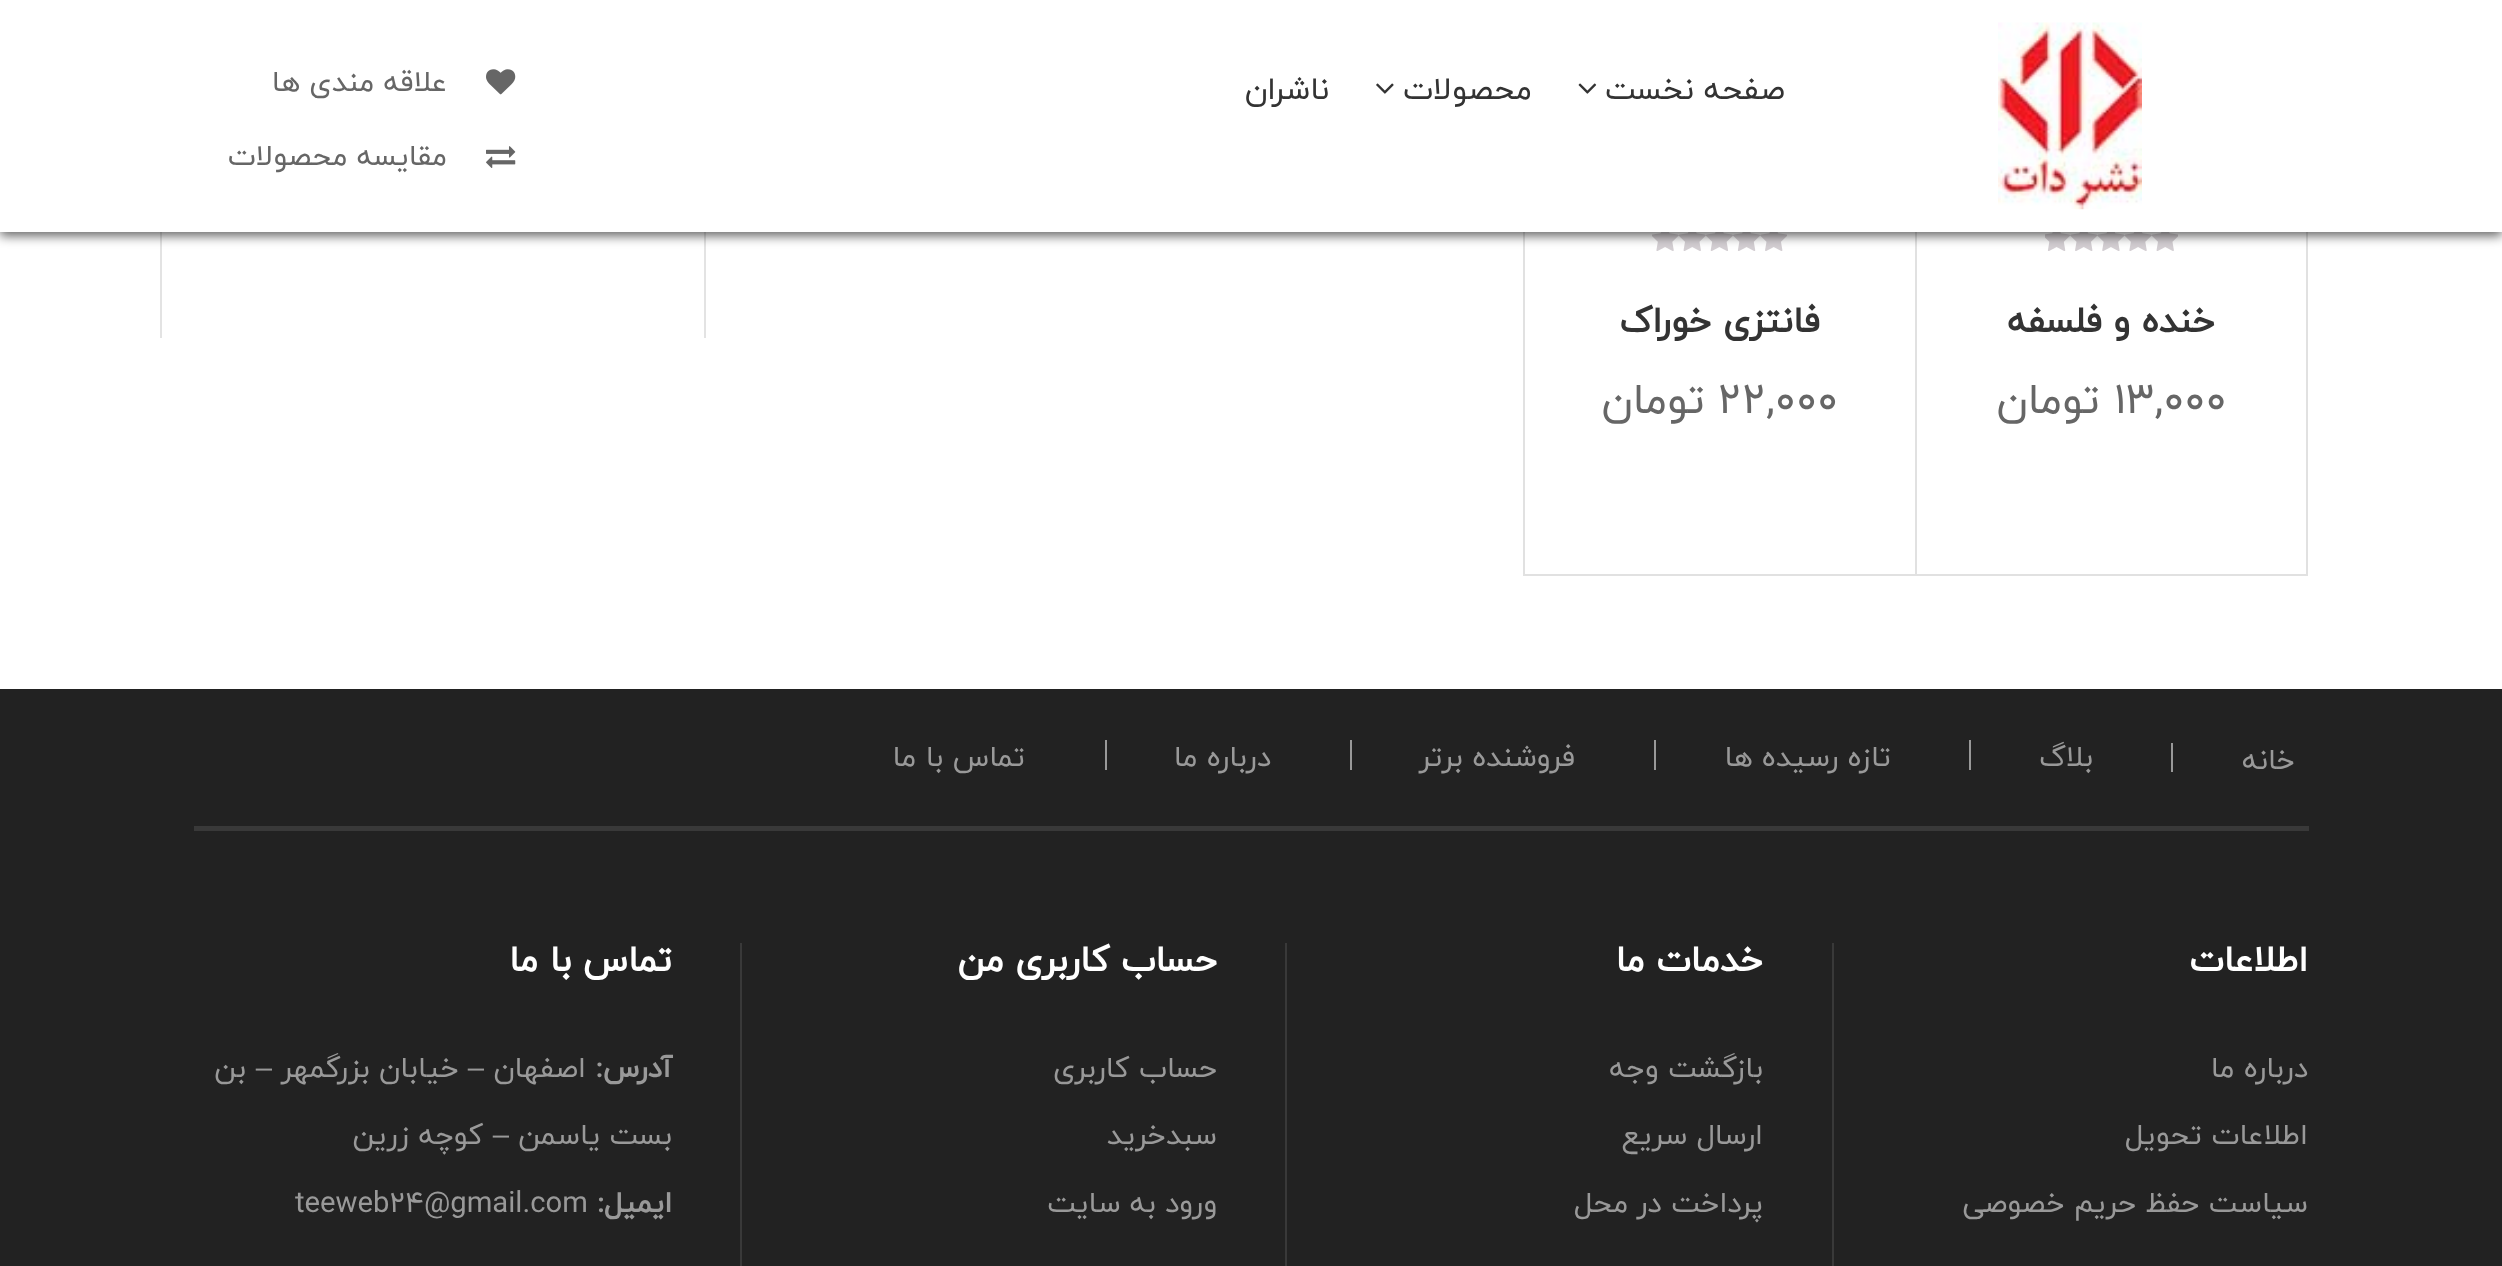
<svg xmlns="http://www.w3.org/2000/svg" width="2502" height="1266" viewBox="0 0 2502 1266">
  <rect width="100%" height="100%" fill="#fff"/>
  <path d="M704 232h2v106H704z" fill="#e3e3e3"/>
  <path d="M160 232h2v106H160z" fill="#e3e3e3"/>
  <path d="M2306 232h2v344H2306z" fill="#e1e1e1"/>
  <path d="M1523 574h783v2H1523z" fill="#e1e1e1"/>
  <path d="M1915 232h2v344H1915z" fill="#e1e1e1"/>
  <image x="2045" y="232" width="133" height="19" href="img/6.png"/>
  <path d="M1523 232h2v344H1523z" fill="#e1e1e1"/>
  <image x="1652" y="232" width="135" height="19" href="img/7.png"/>
  <path d="M0 5h2502v231H0z" fill="#00000099" filter="blur(5.5px)"/>
  <path d="M0 0h2502v232H0z" fill="#fff"/>
  <image x="1998" y="22" width="144" height="188" href="img/1.png"/>
  <image x="1578" y="83" width="19" height="11" href="img/2.png"/>
  <image x="1376" y="83" width="18" height="11" href="img/3.png"/>
  <image x="486" y="69" width="30" height="26" href="img/4.png"/>
  <image x="486" y="146" width="30" height="22" href="img/5.png"/>
  <path d="M0 689h2502v577H0z" fill="#222"/>
  <path d="M194 826h2115v5H194z" fill="#393939"/>
  <path d="M2171 743h2v29H2171z" fill="#999"/>
  <path d="M1969 740h2v30H1969z" fill="#999"/>
  <path d="M1654 740h2v30H1654z" fill="#999"/>
  <path d="M1350 740h2v30H1350z" fill="#999"/>
  <path d="M1105 740h2v30H1105z" fill="#999"/>
  <path d="M1832 943h2v323H1832z" fill="#393939"/>
  <path d="M1285 943h2v323H1285z" fill="#393939"/>
  <path d="M740 943h2v323H740z" fill="#393939"/>
  <g font-family="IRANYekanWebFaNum" font-size="31.5" direction="rtl" fill="#333">
    <text x="1785" y="99">صفحه نخست</text>
    <text x="1532" y="99">محصولات</text>
    <text x="1329" y="99">ناشران</text>
  </g>
  <g font-family="IRANYekanWebFaNum" font-size="29.25" direction="rtl" fill="#666">
    <text x="447" y="91">علاقه مندی ها</text>
    <text x="447" y="165">مقایسه محصولات</text>
  </g>
  <text x="2215" y="332" font-family="IRANYekanWebFaNum" font-size="36" font-weight="bold" direction="rtl" fill="#333">خنده و فلسفه</text>
  <text x="2114" y="413" font-family="IRANYekanWebFaNum" font-size="43" fill="#666">13,000</text>
  <text x="2100" y="413" font-family="IRANYekanWebFaNum" font-size="43" direction="rtl" fill="#666">تومان</text>
  <text x="1820" y="332" font-family="IRANYekanWebFaNum" font-size="36" font-weight="bold" direction="rtl" fill="#333">فانتزی خوراک</text>
  <text x="1718" y="413" font-family="IRANYekanWebFaNum" font-size="43" fill="#666">22,000</text>
  <text x="1705" y="413" font-family="IRANYekanWebFaNum" font-size="43" direction="rtl" fill="#666">تومان</text>
  <g font-family="IRANYekanWebFaNum" font-size="29.25" direction="rtl" fill="#999">
    <text x="2295" y="769">خانه</text>
    <text x="2093" y="766">بلاگ</text>
    <text x="1891" y="766">تازه رسیده ها</text>
    <text x="1575" y="766">فروشنده برتر</text>
    <text x="1271" y="766">درباره ما</text>
    <text x="1025" y="766">تماس با ما</text>
  </g>
  <text x="2308" y="971" font-family="IRANYekanWebFaNum" font-size="36" font-weight="bold" direction="rtl" fill="#fff">اطلاعات</text>
  <g font-family="IRANYekanWebFaNum" font-size="29.25" direction="rtl" fill="#999">
    <text x="2308" y="1077">درباره ما</text>
    <text x="2308" y="1144">اطلاعات تحویل</text>
    <text x="2308" y="1212">سیاست حفظ حریم خصوصی</text>
  </g>
  <text x="1763" y="971" font-family="IRANYekanWebFaNum" font-size="36" font-weight="bold" direction="rtl" fill="#fff">خدمات ما</text>
  <g font-family="IRANYekanWebFaNum" font-size="29.25" direction="rtl" fill="#999">
    <text x="1763" y="1077">بازگشت وجه</text>
    <text x="1763" y="1144">ارسال سریع</text>
    <text x="1763" y="1212">پرداخت در محل</text>
  </g>
  <text x="1217" y="971" font-family="IRANYekanWebFaNum" font-size="36" font-weight="bold" direction="rtl" fill="#fff">حساب کاربری من</text>
  <g font-family="IRANYekanWebFaNum" font-size="29.25" direction="rtl" fill="#999">
    <text x="1217" y="1077">حساب کاربری</text>
    <text x="1217" y="1144">سبدخرید</text>
    <text x="1217" y="1212">ورود به سایت</text>
  </g>
  <text x="672" y="971" font-family="IRANYekanWebFaNum" font-size="36" font-weight="bold" direction="rtl" fill="#fff">تماس با ما</text>
  <text x="672" y="1077" font-family="IRANYekanWebFaNum" font-size="29.25" font-weight="bold" direction="rtl" fill="#999">آدرس:</text>
  <text x="586" y="1077" font-family="IRANYekanWebFaNum" font-size="29.25" direction="rtl" fill="#999">اصفهان</text>
  <text x="484" y="1077" font-family="Liberation Sans" font-size="29.25" direction="rtl" fill="#999">–</text>
  <text x="459" y="1077" font-family="IRANYekanWebFaNum" font-size="29.25" direction="rtl" fill="#999">خیابان بزرگمهر</text>
  <text x="272" y="1077" font-family="Liberation Sans" font-size="29.25" direction="rtl" fill="#999">–</text>
  <g font-family="IRANYekanWebFaNum" font-size="29.25" direction="rtl" fill="#999">
    <text x="246" y="1077">بن</text>
    <text x="672" y="1144">بست یاسمن</text>
  </g>
  <text x="509" y="1144" font-family="Liberation Sans" font-size="29.25" direction="rtl" fill="#999">–</text>
  <text x="483" y="1144" font-family="IRANYekanWebFaNum" font-size="29.25" direction="rtl" fill="#999">کوچه زرین</text>
  <text x="672" y="1212" font-family="IRANYekanWebFaNum" font-size="29.25" font-weight="bold" direction="rtl" fill="#999">ایمیل:</text>
  <text x="295" y="1212" font-family="IRANYekanWebFaNum" font-size="29.25" fill="#999">teeweb24@gmail.com</text>
</svg>
